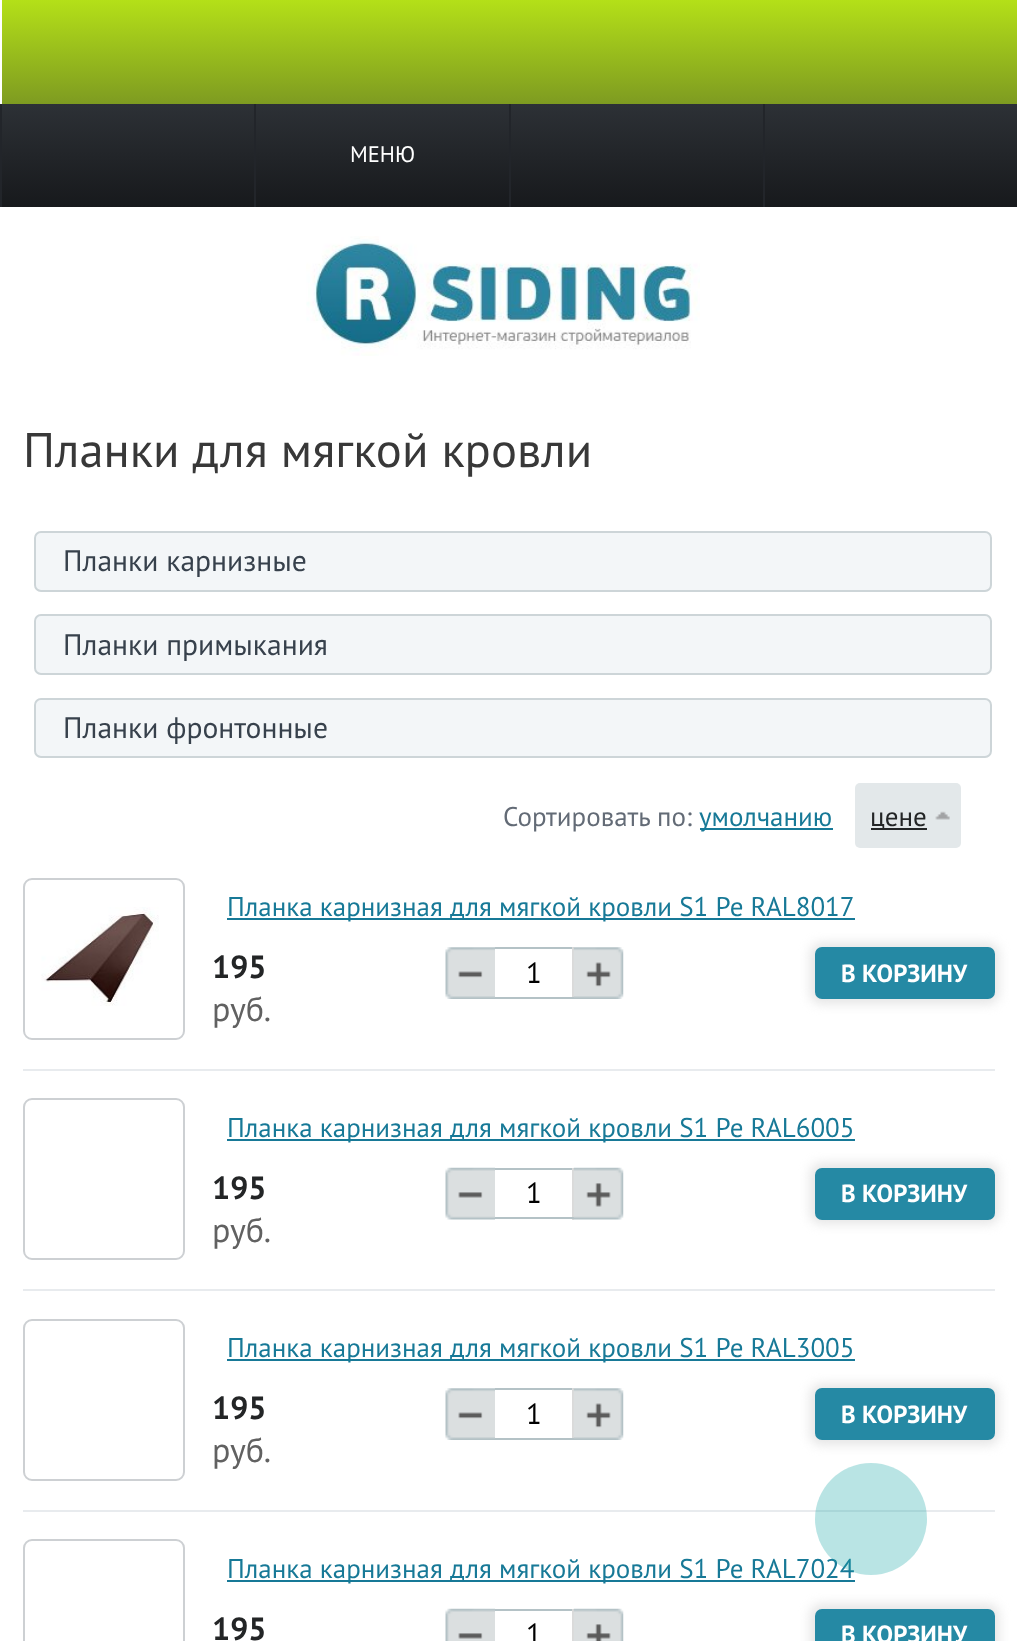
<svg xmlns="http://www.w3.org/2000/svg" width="1017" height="1641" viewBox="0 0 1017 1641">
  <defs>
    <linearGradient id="g1" gradientUnits="userSpaceOnUse" x1="509" y1="103" x2="509" y2="207"><stop offset="0" stop-color="#2d3136"/><stop offset="1" stop-color="#17191c"/></linearGradient>
    <linearGradient id="g2" gradientUnits="userSpaceOnUse" x1="509" y1="0" x2="509" y2="104"><stop offset="0" stop-color="#b4e018"/><stop offset="1" stop-color="#7e9b21"/></linearGradient>
  </defs>
  <rect width="100%" height="100%" fill="#fff"/>
  <path d="M2 104h1015v103H2z" fill="url(#g1)"/>
  <path d="M0 104h2v103H0z" fill="#22252a"/>
  <path d="M254 104h2v103H254z" fill="#22252a"/>
  <path d="M509 104h2v103H509z" fill="#22252a"/>
  <path d="M763 104h2v103H763z" fill="#22252a"/>
  <image x="306" y="236" width="394" height="120" href="img/1.png"/>
  <path d="M2 0h1015v104H2z" fill="url(#g2)"/>
  <rect x="35" y="532" width="956" height="59" rx="6" fill="#f3f6f8" stroke="#cdd5d8" stroke-width="2"/>
  <rect x="35" y="615" width="956" height="59" rx="6" fill="#f3f6f8" stroke="#cdd5d8" stroke-width="2"/>
  <rect x="35" y="699" width="956" height="58" rx="6" fill="#f3f6f8" stroke="#cdd5d8" stroke-width="2"/>
  <path d="M700 828h133v2H700z" fill="#177997"/>
  <rect x="855" y="783" width="106" height="65" rx="5" fill="#e3e8ea"/>
  <image x="935" y="811" width="15" height="9" href="img/2.png"/>
  <path d="M871 828h56v2H871z" fill="#232526"/>
  <path d="M23 1069h972v2H23z" fill="#e8ebee"/>
  <rect x="24" y="879" width="160" height="160" rx="8" fill="none" stroke="#cdd0d3" stroke-width="2"/>
  <image x="41" y="907" width="118" height="99" href="img/3.png"/>
  <path d="M227 918h628v2H227z" fill="#177997"/>
  <image x="445" y="947" width="50" height="52" href="img/4.png"/>
  <path d="M495 947h79v2H495z" fill="#b4c2c6"/>
  <path d="M572 947h2v52H572z" fill="#dadada"/>
  <path d="M495 997h79v2H495z" fill="#b4c2c6"/>
  <image x="573" y="947" width="51" height="52" href="img/5.png"/>
  <rect x="810" y="943" width="189" height="61" rx="11" fill="#cccccc80" filter="blur(5.5px)"/>
  <rect x="816" y="948" width="178" height="50" rx="6" fill="#2589a4" stroke="#2589a4" stroke-width="2"/>
  <path d="M23 1289h972v2H23z" fill="#e8ebee"/>
  <rect x="24" y="1099" width="160" height="160" rx="8" fill="none" stroke="#cdd0d3" stroke-width="2"/>
  <path d="M227 1139h628v2H227z" fill="#177997"/>
  <image x="445" y="1167" width="50" height="53" href="img/6.png"/>
  <path d="M495 1168h79v2H495z" fill="#b4c2c6"/>
  <path d="M572 1168h2v52H572z" fill="#dadada"/>
  <path d="M495 1217h79v2H495z" fill="#b4c2c6"/>
  <image x="573" y="1167" width="51" height="53" href="img/7.png"/>
  <rect x="810" y="1163" width="189" height="61" rx="11" fill="#cccccc80" filter="blur(5.5px)"/>
  <rect x="816" y="1169" width="178" height="50" rx="6" fill="#2589a4" stroke="#2589a4" stroke-width="2"/>
  <path d="M23 1510h972v2H23z" fill="#e8ebee"/>
  <rect x="24" y="1320" width="160" height="160" rx="8" fill="none" stroke="#cdd0d3" stroke-width="2"/>
  <path d="M227 1359h628v2H227z" fill="#177997"/>
  <image x="445" y="1388" width="50" height="52" href="img/4.png"/>
  <path d="M495 1388h79v2H495z" fill="#b4c2c6"/>
  <path d="M572 1388h2v52H572z" fill="#dadada"/>
  <path d="M495 1438h79v2H495z" fill="#b4c2c6"/>
  <image x="573" y="1388" width="51" height="52" href="img/5.png"/>
  <rect x="810" y="1384" width="189" height="61" rx="11" fill="#cccccc80" filter="blur(5.5px)"/>
  <rect x="816" y="1389" width="178" height="50" rx="6" fill="#2589a4" stroke="#2589a4" stroke-width="2"/>
  <rect x="24" y="1540" width="160" height="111" rx="8" fill="none" stroke="#cdd0d3" stroke-width="2"/>
  <path d="M227 1580h628v2H227z" fill="#177997"/>
  <image x="445" y="1608" width="50" height="33" href="img/8.png"/>
  <path d="M495 1609h79v2H495z" fill="#b4c2c6"/>
  <path d="M572 1609h2v32H572z" fill="#dadada"/>
  <image x="573" y="1608" width="51" height="33" href="img/9.png"/>
  <rect x="810" y="1604" width="189" height="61" rx="11" fill="#cccccc80" filter="blur(5.5px)"/>
  <rect x="816" y="1610" width="178" height="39" rx="6" fill="#2589a4" stroke="#2589a4" stroke-width="2"/>
  <text x="350" y="162" font-family="PT Sans" font-size="22.5" fill="#fff">МЕНЮ</text>
  <text x="23" y="467" font-family="PT Sans" font-size="48.6" fill="#383838">Планки для мягкой кровли</text>
  <g font-family="PT Sans" font-size="29.6" fill="#37414c">
    <text x="63" y="571">Планки карнизные</text>
    <text x="63" y="655">Планки примыкания</text>
    <text x="63" y="738">Планки фронтонные</text>
  </g>
  <text x="503" y="826" font-family="PT Sans" font-size="27" fill="#636b76">Сортировать по:</text>
  <text x="699" y="826" font-family="PT Sans" font-size="27" fill="#177997">умолчанию</text>
  <text x="870" y="826" font-family="PT Sans" font-size="27" fill="#232526">цене</text>
  <text x="227" y="916" font-family="PT Sans" font-size="27" fill="#177997">Планка карнизная для мягкой кровли S1 Pe RAL8017</text>
  <text x="212" y="978" font-family="PT Sans" font-size="32" font-weight="bold" fill="#232526">195</text>
  <text x="212" y="1021" font-family="PT Sans" font-size="34" fill="#616161">руб.</text>
  <text x="526" y="983" font-family="PT Sans" font-size="29" fill="#000">1</text>
  <text x="841" y="982" font-family="PT Sans" font-size="24.75" font-weight="bold" fill="#fff">В КОРЗИНУ</text>
  <text x="227" y="1137" font-family="PT Sans" font-size="27" fill="#177997">Планка карнизная для мягкой кровли S1 Pe RAL6005</text>
  <text x="212" y="1199" font-family="PT Sans" font-size="32" font-weight="bold" fill="#232526">195</text>
  <text x="212" y="1242" font-family="PT Sans" font-size="34" fill="#616161">руб.</text>
  <text x="526" y="1203" font-family="PT Sans" font-size="29" fill="#000">1</text>
  <text x="841" y="1202" font-family="PT Sans" font-size="24.75" font-weight="bold" fill="#fff">В КОРЗИНУ</text>
  <text x="227" y="1357" font-family="PT Sans" font-size="27" fill="#177997">Планка карнизная для мягкой кровли S1 Pe RAL3005</text>
  <text x="212" y="1419" font-family="PT Sans" font-size="32" font-weight="bold" fill="#232526">195</text>
  <text x="212" y="1462" font-family="PT Sans" font-size="34" fill="#616161">руб.</text>
  <text x="526" y="1424" font-family="PT Sans" font-size="29" fill="#000">1</text>
  <text x="841" y="1423" font-family="PT Sans" font-size="24.75" font-weight="bold" fill="#fff">В КОРЗИНУ</text>
  <text x="227" y="1578" font-family="PT Sans" font-size="27" fill="#177997">Планка карнизная для мягкой кровли S1 Pe RAL7024</text>
  <text x="212" y="1640" font-family="PT Sans" font-size="32" font-weight="bold" fill="#232526">195</text>
  <text x="526" y="1644" font-family="PT Sans" font-size="29" fill="#000">1</text>
  <text x="841" y="1643" font-family="PT Sans" font-size="24.75" font-weight="bold" fill="#fff">В КОРЗИНУ</text>
  <circle cx="871" cy="1519" r="56" fill="#17a7a74d"/>
</svg>
